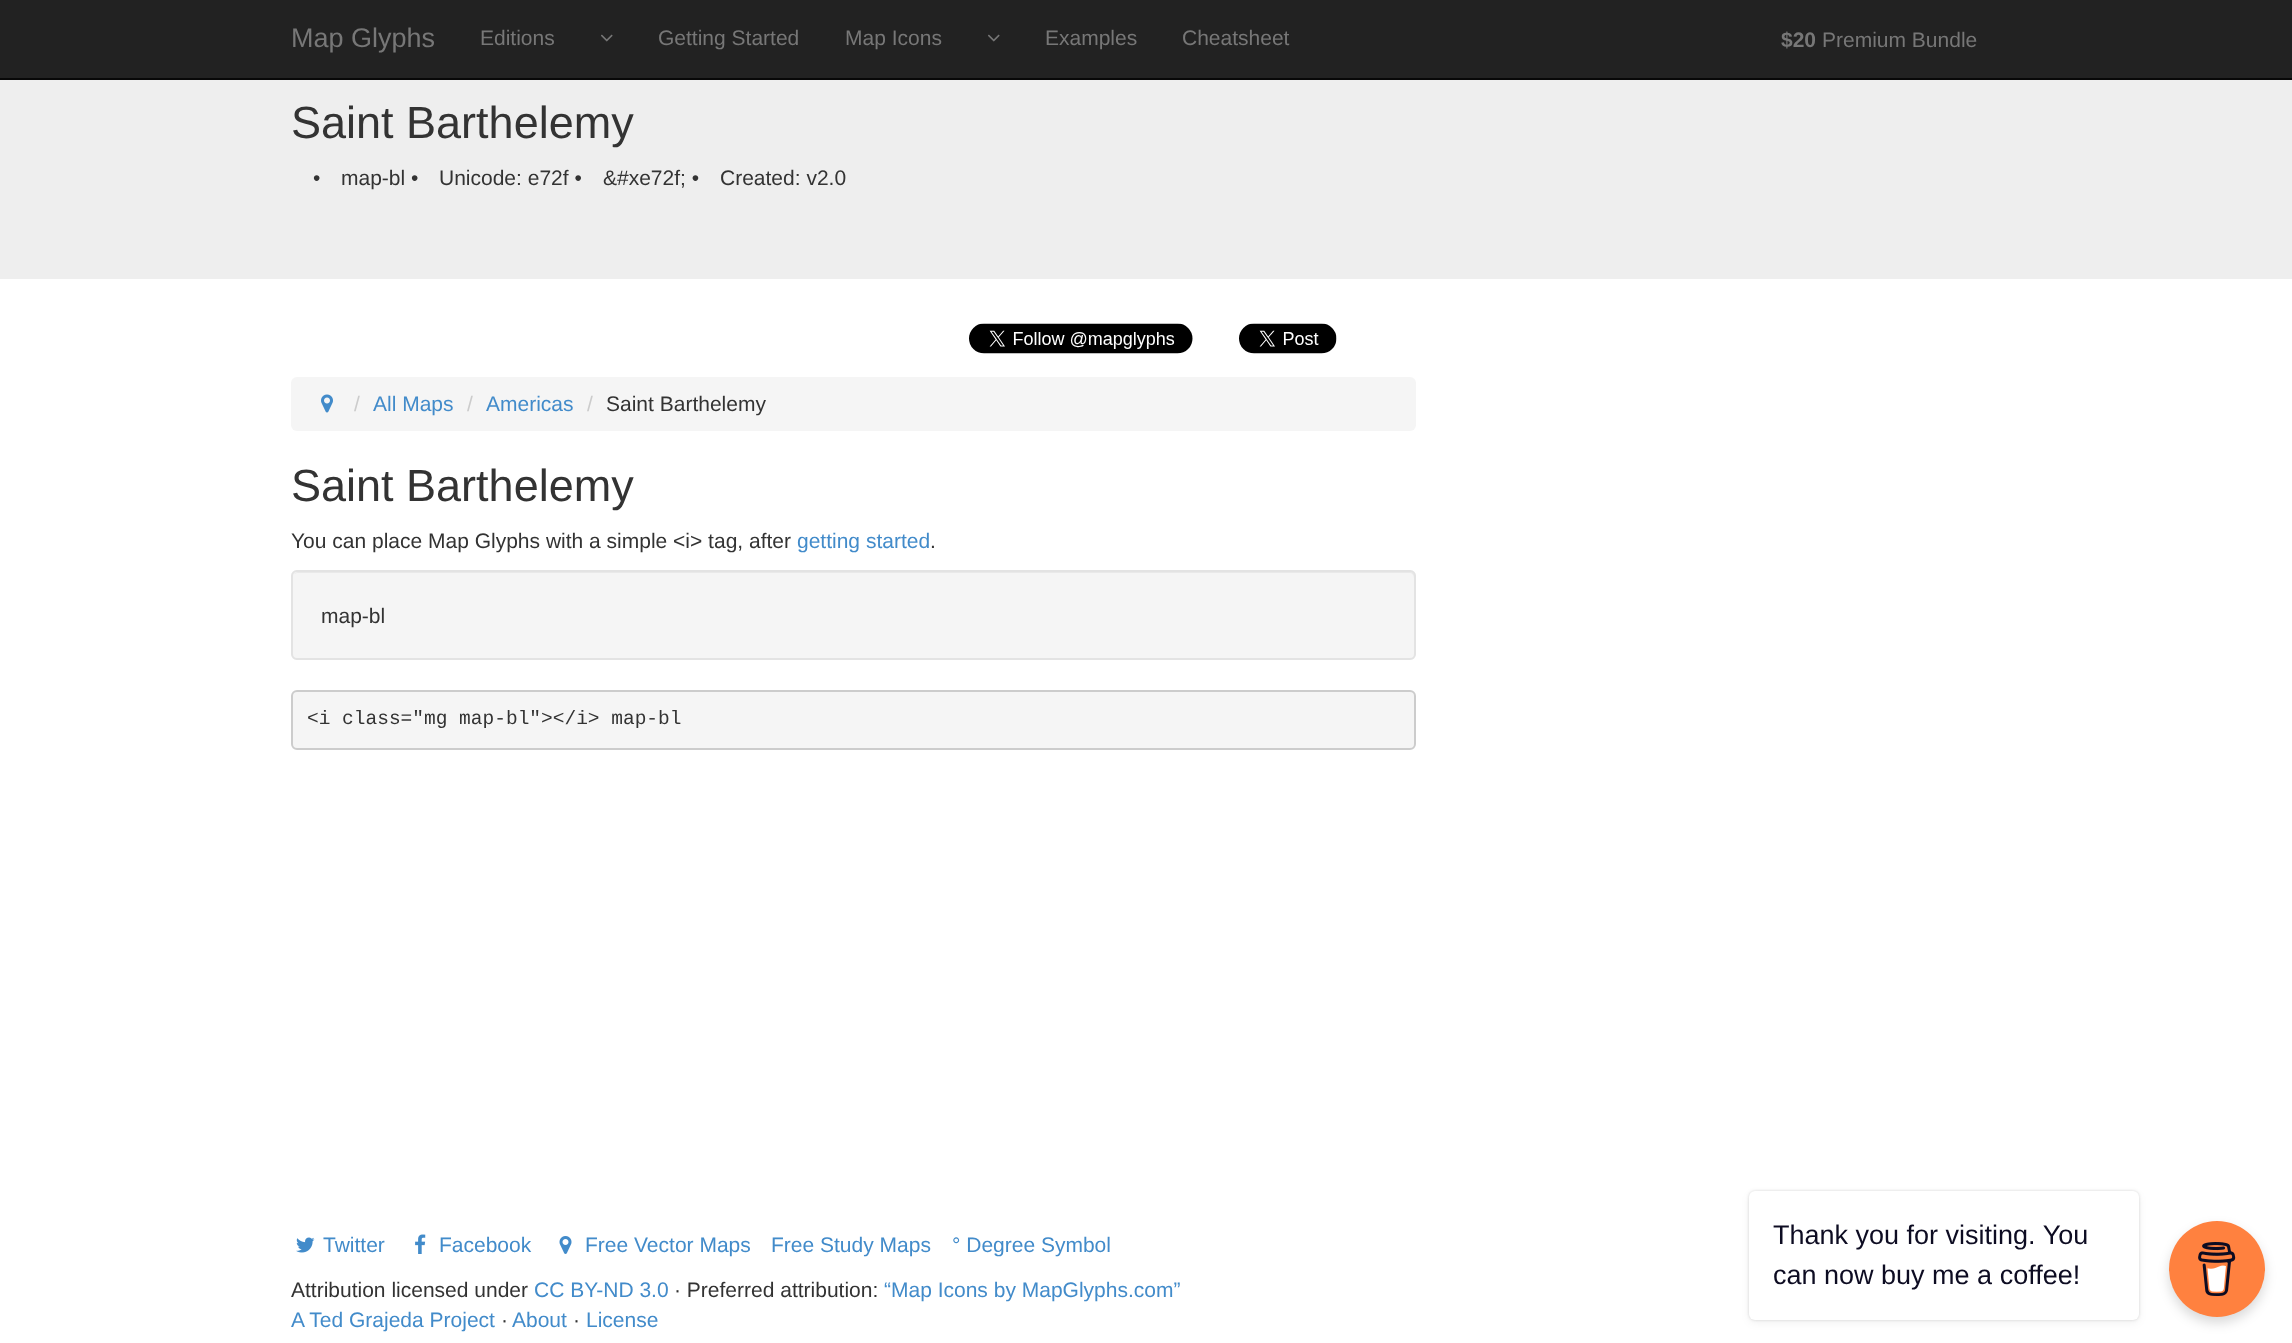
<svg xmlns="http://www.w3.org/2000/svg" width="2292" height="1343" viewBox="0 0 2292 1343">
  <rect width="100%" height="100%" fill="#fff"/>
  <path d="M0 0h2292v78H0z" fill="#222"/>
  <path d="M0 78h2292v2H0z" fill="#080808"/>
  <image x="601" y="34" width="12" height="8" href="img/1.png"/>
  <image x="988" y="34" width="12" height="8" href="img/1.png"/>
  <path d="M0 80h2292v199H0z" fill="#eee"/>
  <image x="969" y="323" width="224" height="31" href="img/2.png"/>
  <image x="1239" y="323" width="98" height="31" href="img/3.png"/>
  <rect x="291" y="377" width="1125" height="54" rx="6" fill="#f5f5f5"/>
  <image x="321" y="394" width="12" height="19" href="img/4.png"/>
  <rect x="291" y="570" width="1125" height="90" rx="6" fill="#f5f5f5"/>
  <path d="M297 573H1410C1412 573 1414 575 1414 578V657C1415 656 1415 655 1415 654V577C1415 574 1413 572 1410 572H298C296 572 295 573 294 574Z" fill="#e9e9e9"/>
  <rect x="292" y="571" width="1123" height="88" rx="5" fill="none" stroke="#e3e3e3" stroke-width="2"/>
  <rect x="292" y="691" width="1123" height="58" rx="5" fill="#f5f5f5" stroke="#ccc" stroke-width="2"/>
  <image x="296" y="1237" width="19" height="16" href="img/5.png"/>
  <image x="415" y="1234" width="11" height="20" href="img/6.png"/>
  <image x="559" y="1236" width="13" height="18" href="img/7.png"/>
  <rect x="1749" y="1191" width="390" height="129" rx="6" fill="#00000026" filter="blur(1.5px)"/>
  <rect x="1749" y="1194" width="390" height="129" rx="6" fill="#0000000d" filter="blur(4px)"/>
  <rect x="1749" y="1191" width="390" height="129" rx="6" fill="#fff"/>
  <rect x="2169" y="1227" width="96" height="96" rx="48" fill="#00000026" filter="blur(6px)"/>
  <circle cx="2217" cy="1269" r="48" fill="#ff813f"/>
  <image x="2198" y="1242" width="38" height="54" href="img/8.png"/>
  <text x="291" y="47" font-family="Liberation Sans" font-size="27" fill="#777">Map Glyphs</text>
  <g font-family="Liberation Sans" font-size="21" fill="#777">
    <text x="480" y="45">Editions</text>
    <text x="658" y="45">Getting Started</text>
    <text x="845" y="45">Map Icons</text>
    <text x="1045" y="45">Examples</text>
    <text x="1182" y="45">Cheatsheet</text>
  </g>
  <text x="1781" y="47" font-family="Liberation Sans" font-size="21" font-weight="bold" fill="#777">$20</text>
  <text x="1822" y="47" font-family="Liberation Sans" font-size="21" fill="#777">Premium Bundle</text>
  <text x="291" y="138" font-family="Liberation Sans" font-size="45" fill="#333">Saint Barthelemy</text>
  <g font-family="Liberation Sans" font-size="21" fill="#333">
    <text x="313" y="185">•</text>
    <text x="341" y="185">map-bl •</text>
    <text x="439" y="185">Unicode: e72f •</text>
    <text x="603" y="185">&amp;#xe72f; •</text>
    <text x="720" y="185">Created: v2.0</text>
  </g>
  <text x="354" y="411" font-family="Liberation Sans" font-size="21" fill="#ccc">/</text>
  <text x="373" y="411" font-family="Liberation Sans" font-size="21" fill="#428bca">All Maps</text>
  <text x="467" y="411" font-family="Liberation Sans" font-size="21" fill="#ccc">/</text>
  <text x="486" y="411" font-family="Liberation Sans" font-size="21" fill="#428bca">Americas</text>
  <text x="587" y="411" font-family="Liberation Sans" font-size="21" fill="#ccc">/</text>
  <text x="606" y="411" font-family="Liberation Sans" font-size="21" fill="#333">Saint Barthelemy</text>
  <text x="291" y="501" font-family="Liberation Sans" font-size="45" fill="#333">Saint Barthelemy</text>
  <text x="291" y="548" font-family="Liberation Sans" font-size="21" fill="#333">You can place Map Glyphs with a simple &lt;i&gt; tag, after</text>
  <text x="797" y="548" font-family="Liberation Sans" font-size="21" fill="#428bca">getting started</text>
  <g font-family="Liberation Sans" font-size="21" fill="#333">
    <text x="930" y="548">.</text>
    <text x="321" y="623">map-bl</text>
  </g>
  <text x="307" y="724" font-family="Liberation Mono" font-size="19.5" fill="#333">&lt;i class="mg map-bl"&gt;&lt;/i&gt; map-bl</text>
  <g font-family="Liberation Sans" font-size="21" fill="#428bca">
    <text x="323" y="1252">Twitter</text>
    <text x="439" y="1252">Facebook</text>
    <text x="585" y="1252">Free Vector Maps</text>
    <text x="771" y="1252">Free Study Maps</text>
    <text x="952" y="1252">° Degree Symbol</text>
  </g>
  <text x="291" y="1297" font-family="Liberation Sans" font-size="21" fill="#333">Attribution licensed under</text>
  <text x="534" y="1297" font-family="Liberation Sans" font-size="21" fill="#428bca">CC BY-ND 3.0</text>
  <text x="674" y="1297" font-family="Liberation Sans" font-size="21" fill="#333">· Preferred attribution:</text>
  <g font-family="Liberation Sans" font-size="21" fill="#428bca">
    <text x="884" y="1297">“Map Icons by MapGlyphs.com”</text>
    <text x="291" y="1327">A Ted Grajeda Project</text>
  </g>
  <text x="501" y="1327" font-family="Liberation Sans" font-size="21" fill="#333">·</text>
  <text x="512" y="1327" font-family="Liberation Sans" font-size="21" fill="#428bca">About</text>
  <text x="573" y="1327" font-family="Liberation Sans" font-size="21" fill="#333">·</text>
  <text x="586" y="1327" font-family="Liberation Sans" font-size="21" fill="#428bca">License</text>
  <g font-family="Liberation Sans" font-size="27" fill="#0d0c22">
    <text x="1773" y="1244">Thank you for visiting. You</text>
    <text x="1773" y="1284">can now buy me a coffee!</text>
  </g>
</svg>
